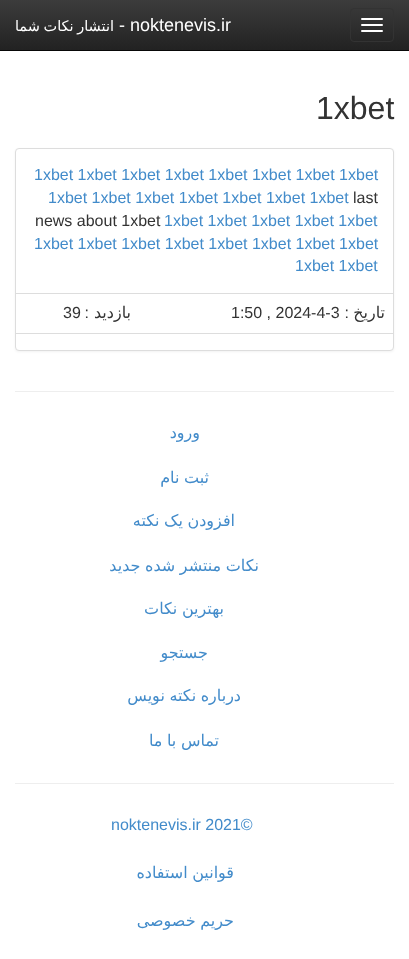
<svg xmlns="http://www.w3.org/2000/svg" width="409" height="959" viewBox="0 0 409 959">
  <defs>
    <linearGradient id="g1" gradientUnits="userSpaceOnUse" x1="205" y1="0" x2="205" y2="50"><stop offset="0" stop-color="#3c3c3c"/><stop offset="1" stop-color="#222"/></linearGradient>
  </defs>
  <rect width="100%" height="100%" fill="#fff"/>
  <path d="M0 0h409v50H0z" fill="url(#g1)"/>
  <path d="M0 50h409v1H0z" fill="#080808"/>
  <rect x="350.5" y="8.5" width="43" height="33" rx="3.5" fill="none" stroke="#333"/>
  <rect x="361" y="18" width="22" height="2" rx="1" fill="#fff"/>
  <rect x="361" y="24" width="22" height="2" rx="1" fill="#fff"/>
  <rect x="361" y="30" width="22" height="2" rx="1" fill="#fff"/>
  <rect x="15" y="149" width="379" height="203" rx="4" fill="#0000000d" filter="blur(1px)"/>
  <rect x="15.5" y="148.5" width="378" height="202" rx="3.5" fill="#fff" stroke="#ddd"/>
  <path d="M16 293h377v1H16z" fill="#ddd"/>
  <path d="M16 333h378v1H16z" fill="#ddd"/>
  <path d="M15 391h379v1H15z" fill="#eee"/>
  <path d="M15 783h379v1H15z" fill="#eee"/>
  <text x="114" y="31" word-spacing="-1" font-family="DejaVu Sans" font-size="14.5" direction="rtl" fill="#fff">انتشار نکات شما</text>
  <text x="119" y="31" font-family="Liberation Sans" font-size="18" fill="#fff">- noktenevis.ir</text>
  <text x="316" y="119" font-family="Liberation Sans" font-size="32" fill="#333">1xbet</text>
  <g font-family="Liberation Sans" font-size="16" fill="#428bca">
    <text x="34" y="180">1xbet 1xbet 1xbet 1xbet 1xbet 1xbet 1xbet 1xbet</text>
    <text x="48" y="203">1xbet 1xbet 1xbet 1xbet 1xbet 1xbet 1xbet</text>
  </g>
  <g font-family="Liberation Sans" font-size="16" fill="#333">
    <text x="353" y="203">last</text>
    <text x="35" y="226">news about 1xbet</text>
  </g>
  <g font-family="Liberation Sans" font-size="16" fill="#428bca">
    <text x="164" y="226">1xbet 1xbet 1xbet 1xbet 1xbet</text>
    <text x="34" y="249">1xbet 1xbet 1xbet 1xbet 1xbet 1xbet 1xbet 1xbet</text>
    <text x="295" y="271">1xbet 1xbet</text>
  </g>
  <text x="63" y="318" font-family="Liberation Sans" font-size="16" fill="#333">39</text>
  <text x="89" y="318" font-family="Liberation Sans" font-size="16" direction="rtl" fill="#333">:</text>
  <text x="131" y="318" font-family="DejaVu Sans" font-size="16" direction="rtl" fill="#333">بازدید</text>
  <text x="231" y="318" font-family="Liberation Sans" font-size="16" fill="#333">1:50 , 2024-4-3</text>
  <text x="349" y="318" font-family="Liberation Sans" font-size="16" direction="rtl" fill="#333">:</text>
  <text x="385" y="318" font-family="DejaVu Sans" font-size="16" direction="rtl" fill="#333">تاریخ</text>
  <g font-family="DejaVu Sans" font-size="16" direction="rtl" fill="#428bca">
    <text x="200" y="438">ورود</text>
    <text x="209" y="483" word-spacing="-0.5">ثبت نام</text>
    <text x="235" y="526" word-spacing="-0.5">افزودن یک نکته</text>
    <text x="259" y="571" word-spacing="-0.5">نکات منتشر شده جدید</text>
    <text x="224" y="614" word-spacing="-0.5">بهترین نکات</text>
    <text x="208" y="658">جستجو</text>
    <text x="241" y="701" word-spacing="-0.5">درباره نکته نویس</text>
    <text x="219" y="746" word-spacing="-0.5">تماس با ما</text>
  </g>
  <text x="111" y="830" font-family="Liberation Sans" font-size="16" fill="#428bca">noktenevis.ir 2021©</text>
  <g font-family="DejaVu Sans" font-size="16" direction="rtl" fill="#428bca">
    <text x="234" y="878" word-spacing="-0.5">قوانین استفاده</text>
    <text x="234" y="926" word-spacing="-0.5">حریم خصوصی</text>
  </g>
</svg>
